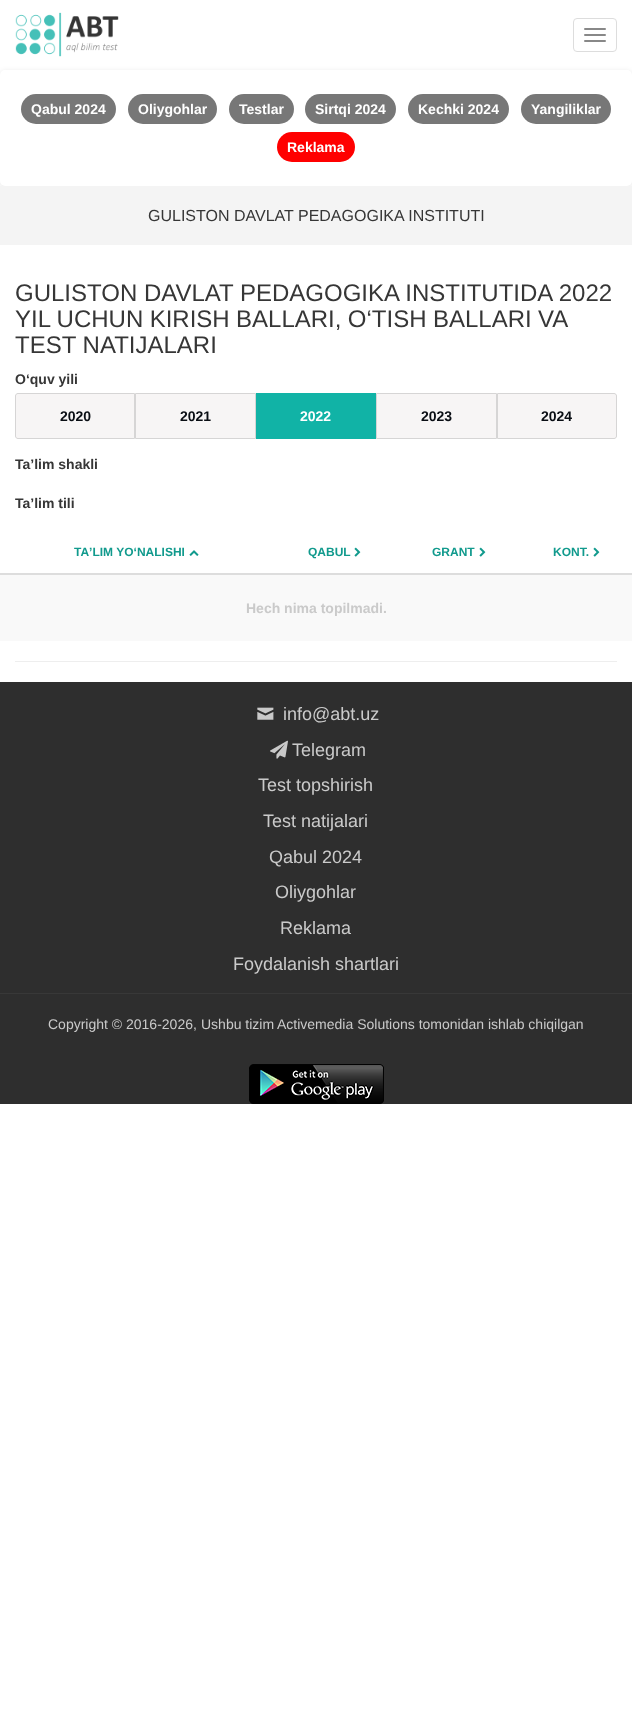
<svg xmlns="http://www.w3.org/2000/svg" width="632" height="1709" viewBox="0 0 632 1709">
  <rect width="100%" height="100%" fill="#fff"/>
  <image x="15" y="12" width="104" height="45" href="img/1.png"/>
  <rect x="573.5" y="18.5" width="43" height="33" rx="3.5" fill="none" stroke="#ddd"/>
  <rect x="584" y="28" width="22" height="2" rx="1" fill="#888"/>
  <rect x="584" y="34" width="22" height="2" rx="1" fill="#888"/>
  <rect x="584" y="40" width="22" height="2" rx="1" fill="#888"/>
  <rect y="71" width="632" height="116" rx="5" fill="#0000001a" filter="blur(2.5px)"/>
  <rect y="70" width="632" height="116" rx="5" fill="#fff"/>
  <rect x="21" y="94" width="95" height="30" rx="15" fill="#777"/>
  <rect x="128" y="94" width="89" height="30" rx="15" fill="#777"/>
  <rect x="229" y="94" width="65" height="30" rx="15" fill="#777"/>
  <rect x="305" y="94" width="91" height="30" rx="15" fill="#777"/>
  <rect x="408" y="94" width="101" height="30" rx="15" fill="#777"/>
  <rect x="521" y="94" width="90" height="30" rx="15" fill="#777"/>
  <rect x="277" y="132" width="78" height="30" rx="15" fill="#f00"/>
  <path d="M0 186h632v59H0z" fill="#f4f4f4"/>
  <path d="M18 393.5H134.5V438.5H18C16.5 438.5 15.5 437.5 15.5 436V396C15.5 394.5 16.5 393.5 18 393.5Z" fill="#f7f5f5" stroke="#d6d5d5"/>
  <path d="M135.5 393.5h120v45H135.5z" fill="#f7f5f5" stroke="#d6d5d5"/>
  <path d="M256 393h120v46H256z" fill="#11b3a6"/>
  <path d="M376.5 393.5h120v45H376.5z" fill="#f7f5f5" stroke="#d6d5d5"/>
  <path d="M497.5 393.5H614C615.5 393.5 616.5 394.5 616.5 396V436C616.5 437.5 615.5 438.5 614 438.5H497.5Z" fill="#f7f5f5" stroke="#d6d5d5"/>
  <image x="189" y="550" width="10" height="6" href="img/2.png"/>
  <image x="354" y="547" width="7" height="10" href="img/3.png"/>
  <image x="479" y="547" width="7" height="10" href="img/3.png"/>
  <path d="M0 573h632v2H0z" fill="#ddd"/>
  <image x="593" y="547" width="7" height="10" href="img/3.png"/>
  <path d="M0 575h632v66H0z" fill="#f9f9f9"/>
  <path d="M15 661h602v1H15z" fill="#eee"/>
  <path d="M0 682h632v422H0z" fill="#2e2e2e"/>
  <image x="257" y="707" width="17" height="13" href="img/4.png"/>
  <image x="270" y="740" width="18" height="19" href="img/5.png"/>
  <path d="M0 993h632v1H0z" fill="#383838"/>
  <image x="249" y="1064" width="135" height="40" href="img/6.png"/>
  <g font-family="Liberation Sans" font-size="14" font-weight="bold" fill="#fff">
    <text x="31" y="114">Qabul 2024</text>
    <text x="138" y="114">Oliygohlar</text>
    <text x="239" y="114">Testlar</text>
    <text x="315" y="114">Sirtqi 2024</text>
    <text x="418" y="114">Kechki 2024</text>
    <text x="531" y="114">Yangiliklar</text>
    <text x="287" y="152">Reklama</text>
  </g>
  <text x="148" y="221" font-family="Liberation Sans" font-size="16" fill="#363636">GULISTON DAVLAT PEDAGOGIKA INSTITUTI</text>
  <g font-family="Liberation Sans" font-size="24" fill="#363636">
    <text x="15" y="301">GULISTON DAVLAT PEDAGOGIKA INSTITUTIDA 2022</text>
    <text x="15" y="327" word-spacing="-0.25">YIL UCHUN KIRISH BALLARI, O‘TISH BALLARI VA</text>
    <text x="15" y="353">TEST NATIJALARI</text>
  </g>
  <text x="15" y="384" font-family="Liberation Sans" font-size="14" font-weight="bold" fill="#363636">O‘quv yili</text>
  <g font-family="Liberation Sans" font-size="14" font-weight="bold" fill="#0a0e14">
    <text x="60" y="421">2020</text>
    <text x="180" y="421">2021</text>
  </g>
  <text x="300" y="421" font-family="Liberation Sans" font-size="14" font-weight="bold" fill="#fff">2022</text>
  <g font-family="Liberation Sans" font-size="14" font-weight="bold" fill="#0a0e14">
    <text x="421" y="421">2023</text>
    <text x="541" y="421">2024</text>
  </g>
  <g font-family="Liberation Sans" font-size="14" font-weight="bold" fill="#363636">
    <text x="15" y="469">Taʼlim shakli</text>
    <text x="15" y="508">Ta’lim tili</text>
  </g>
  <g font-family="Liberation Sans" font-size="12" font-weight="bold" fill="#119a8d">
    <text x="74" y="556">TAʼLIM YO‘NALISHI</text>
    <text x="308" y="556">QABUL</text>
    <text x="432" y="556">GRANT</text>
    <text x="553" y="556">KONT.</text>
  </g>
  <text x="246" y="613" font-family="Liberation Sans" font-size="14" font-weight="bold" fill="#cacaca">Hech nima topilmadi.</text>
  <g font-family="Liberation Sans" font-size="18" fill="#cacaca">
    <text x="283" y="720">info@abt.uz</text>
    <text x="292" y="756">Telegram</text>
    <text x="258" y="791">Test topshirish</text>
    <text x="263" y="827">Test natijalari</text>
    <text x="269" y="863">Qabul 2024</text>
    <text x="275" y="898">Oliygohlar</text>
    <text x="280" y="934">Reklama</text>
    <text x="233" y="970">Foydalanish shartlari</text>
  </g>
  <g font-family="Liberation Sans" font-size="14" fill="#cacaca">
    <text x="48" y="1029">Copyright © 2016-2026,</text>
    <text x="201" y="1029">Ushbu tizim</text>
    <text x="277" y="1029">Activemedia Solutions tomonidan ishlab chiqilgan</text>
  </g>
</svg>
